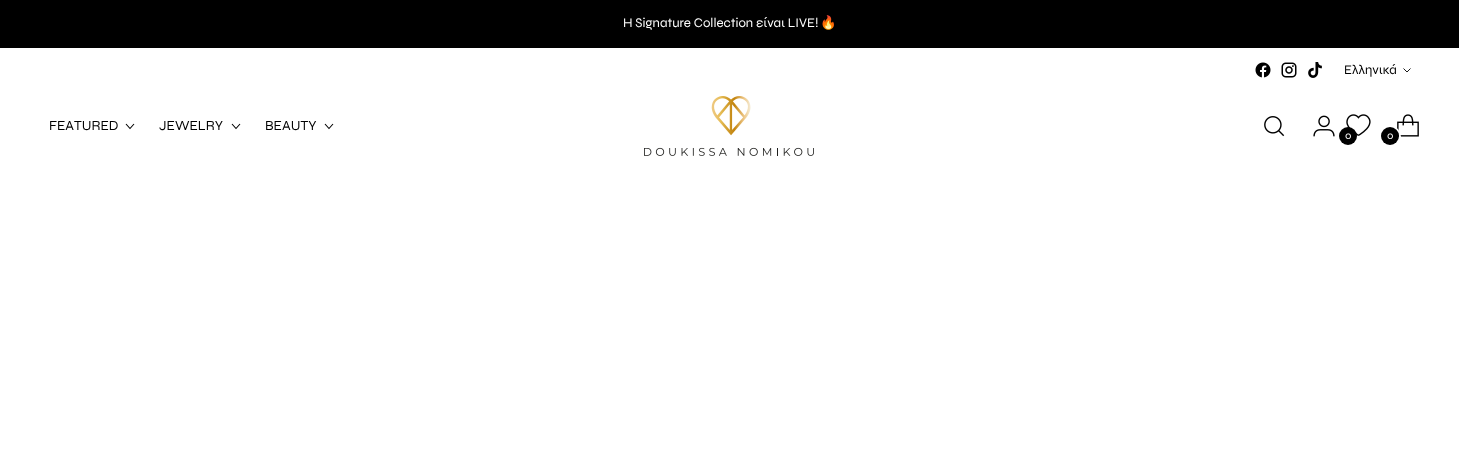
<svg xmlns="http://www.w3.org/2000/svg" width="1459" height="452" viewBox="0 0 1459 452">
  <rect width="100%" height="100%" fill="#fff"/>
  <path d="M0 0h1459v48H0z" fill="#000"/>
  <image x="1255" y="62" width="16" height="16" href="img/1.png"/>
  <image x="1281" y="62" width="16" height="16" href="img/2.png"/>
  <image x="1308" y="62" width="14" height="16" href="img/3.png"/>
  <path d="M1403.5 68.5L1407 72L1410.5 68.5" fill="none" stroke="#000" stroke-width="0.9"/>
  <path d="M126 124L130 128.5L134 124" fill="none" stroke="#000" stroke-width="1.1"/>
  <path d="M232 124L236 128.5L240 124" fill="none" stroke="#000" stroke-width="1.1"/>
  <path d="M325 124L329 128.5L333 124" fill="none" stroke="#000" stroke-width="1.1"/>
  <image x="644" y="96" width="170" height="60" href="img/4.png"/>
  <image x="1264" y="116" width="21" height="21" href="img/5.png"/>
  <image x="1313" y="115" width="22" height="22" href="img/6.png"/>
  <image x="1346" y="114" width="25" height="22" href="img/7.png"/>
  <circle cx="1348" cy="136" r="9" fill="#000"/>
  <image x="1397" y="114" width="22" height="23" href="img/8.png"/>
  <circle cx="1390.5" cy="136.5" r="9.5" fill="none" stroke="#fff" stroke-width="2"/>
  <circle cx="1390" cy="136" r="9" fill="#000"/>
  <text x="623" y="27" font-family="Syne" font-size="13.25" fill="#fff">Η Signature Collection είναι LIVE!</text>
  <text x="820" y="27" font-family="Noto Color Emoji" font-size="13.25" fill="#fff">🔥</text>
  <text x="1344" y="74" font-family="Syne" font-size="13.25" fill="#000">Ελληνικά</text>
  <g font-family="Syne" font-size="14" fill="#000">
    <text x="49" y="130">FEATURED</text>
    <text x="159" y="130">JEWELRY</text>
    <text x="265" y="130">BEAUTY</text>
  </g>
  <g font-family="Syne" font-size="11" fill="#fff">
    <text x="1345" y="139">0</text>
    <text x="1387" y="139">0</text>
  </g>
</svg>
